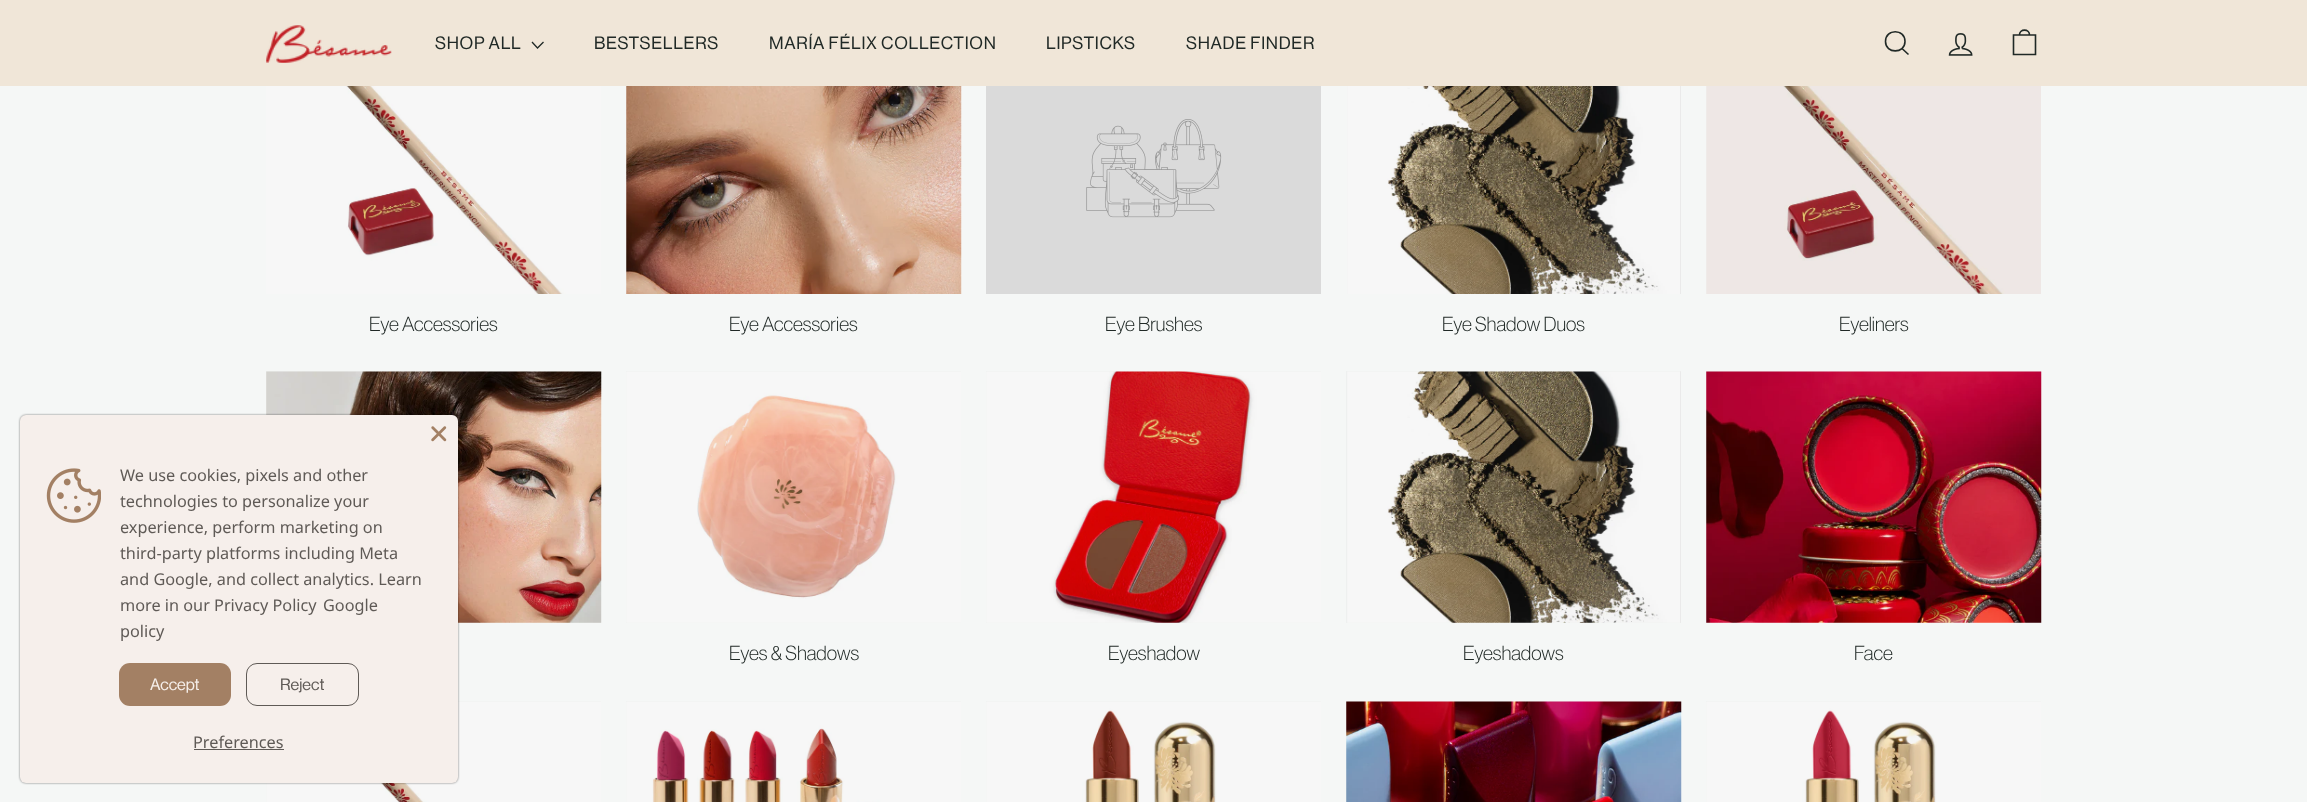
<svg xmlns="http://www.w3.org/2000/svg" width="2307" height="802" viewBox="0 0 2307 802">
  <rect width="100%" height="100%" fill="#f5f7f6"/>
  <path d="M1706 701h335v101H1706z" fill="#eef0ef"/>
  <path d="M1346 701h335v101H1346z" fill="#eef0ef"/>
  <path d="M986 701h335v101H986z" fill="#eef0ef"/>
  <path d="M626 701h335v101H626z" fill="#eef0ef"/>
  <path d="M266 701h335v101H266z" fill="#eef0ef"/>
  <path d="M1706 371h335v252H1706z" fill="#eef0ef"/>
  <path d="M1346 371h335v252H1346z" fill="#eef0ef"/>
  <path d="M986 371h335v252H986z" fill="#eef0ef"/>
  <path d="M626 371h335v252H626z" fill="#eef0ef"/>
  <path d="M266 371h335v252H266z" fill="#eef0ef"/>
  <image x="266" y="371" width="336" height="252" href="img/10.png"/>
  <image x="266" y="701" width="335" height="101" href="img/15.png"/>
  <rect x="20" y="415" width="438" height="368" rx="6" fill="#00000080" filter="blur(1px)"/>
  <rect x="20" y="415" width="438" height="368" rx="6" fill="#f6efeb"/>
  <image x="431" y="426" width="16" height="16" href="img/1.png"/>
  <image x="46" y="468" width="55" height="55" href="img/2.png"/>
  <rect x="119" y="663" width="112" height="43" rx="11" fill="#a38064"/>
  <rect x="246.5" y="663.5" width="112" height="42" rx="10.5" fill="none" stroke="#5f5a56"/>
  <path d="M194 749h90v1H194z" fill="#5f5a56"/>
  <path d="M0 0h2307v86H0z" fill="#f0e6d8"/>
  <image x="266" y="25" width="126" height="38" href="img/3.png"/>
  <path d="M532 42L537.5 48L543.5 42" fill="none" stroke="#202926" stroke-width="1.3"/>
  <path d="M1905 41.5C1905 54 1885.5 54 1885.5 41.5C1885.5 28.5 1905 28.5 1905 41.5M1908.5 54.5L1902 48.5" fill="none" stroke="#202926" stroke-width="1.6"/>
  <image x="1948" y="33" width="25" height="23" href="img/4.png"/>
  <path d="M2019.5 35C2019.5 28.5 2029.5 28.5 2029.5 35M2013.5 35H2035.5V54.5H2013.5Z" fill="none" stroke="#202926" stroke-width="1.6"/>
  <image x="266" y="86" width="335" height="208" href="img/5.png"/>
  <image x="626" y="86" width="336" height="208" href="img/6.png"/>
  <path d="M986 86h335v208H986z" fill="#dadada"/>
  <image x="1086" y="119" width="136" height="99" href="img/7.png"/>
  <image x="1347" y="86" width="334" height="208" href="img/8.png"/>
  <image x="1706" y="86" width="335" height="208" href="img/9.png"/>
  <image x="626" y="371" width="335" height="252" href="img/11.png"/>
  <image x="986" y="371" width="335" height="252" href="img/12.png"/>
  <image x="1347" y="371" width="334" height="252" href="img/13.png"/>
  <image x="1706" y="371" width="336" height="252" href="img/14.png"/>
  <image x="626" y="701" width="335" height="101" href="img/16.png"/>
  <image x="986" y="701" width="335" height="101" href="img/17.png"/>
  <image x="1346" y="701" width="336" height="101" href="img/18.png"/>
  <image x="1706" y="701" width="335" height="101" href="img/19.png"/>
  <g font-family="Noto Sans" font-size="16.25" fill="#5f5a56">
    <text x="120" y="481">We use cookies, pixels and other</text>
    <text x="120" y="507">technologies to personalize your</text>
    <text x="120" y="533">experience, perform marketing on</text>
    <text x="120" y="559">third-party platforms including Meta</text>
    <text x="120" y="585">and Google, and collect analytics. Learn</text>
    <text x="120" y="611">more in our Privacy Policy</text>
    <text x="323" y="611">Google</text>
    <text x="120" y="637">policy</text>
  </g>
  <text x="150" y="690" font-family="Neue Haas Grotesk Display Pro" font-size="16.25" font-weight="500" fill="#f6efeb">Accept</text>
  <text x="280" y="690" font-family="Neue Haas Grotesk Display Pro" font-size="16.25" font-weight="500" fill="#5f5a56">Reject</text>
  <text x="193" y="748" font-family="Noto Sans" font-size="16.25" fill="#5f5a56">Preferences</text>
  <g font-family="Neue Haas Grotesk Display Pro" font-size="17.5" font-weight="500" letter-spacing="0.7" fill="#202926">
    <text x="435" y="49">SHOP ALL</text>
    <text x="594" y="49">BESTSELLERS</text>
    <text x="769" y="49">MARÍA FÉLIX COLLECTION</text>
    <text x="1046" y="49">LIPSTICKS</text>
    <text x="1186" y="49">SHADE FINDER</text>
  </g>
  <g font-family="Neue Haas Grotesk Display Pro" font-size="20" fill="#202926">
    <text x="369" y="331">Eye Accessories</text>
    <text x="729" y="331">Eye Accessories</text>
    <text x="1105" y="331">Eye Brushes</text>
    <text x="1442" y="331">Eye Shadow Duos</text>
    <text x="1839" y="331">Eyeliners</text>
    <text x="729" y="660">Eyes &amp; Shadows</text>
    <text x="1108" y="660">Eyeshadow</text>
    <text x="1463" y="660">Eyeshadows</text>
    <text x="1854" y="660">Face</text>
  </g>
</svg>
